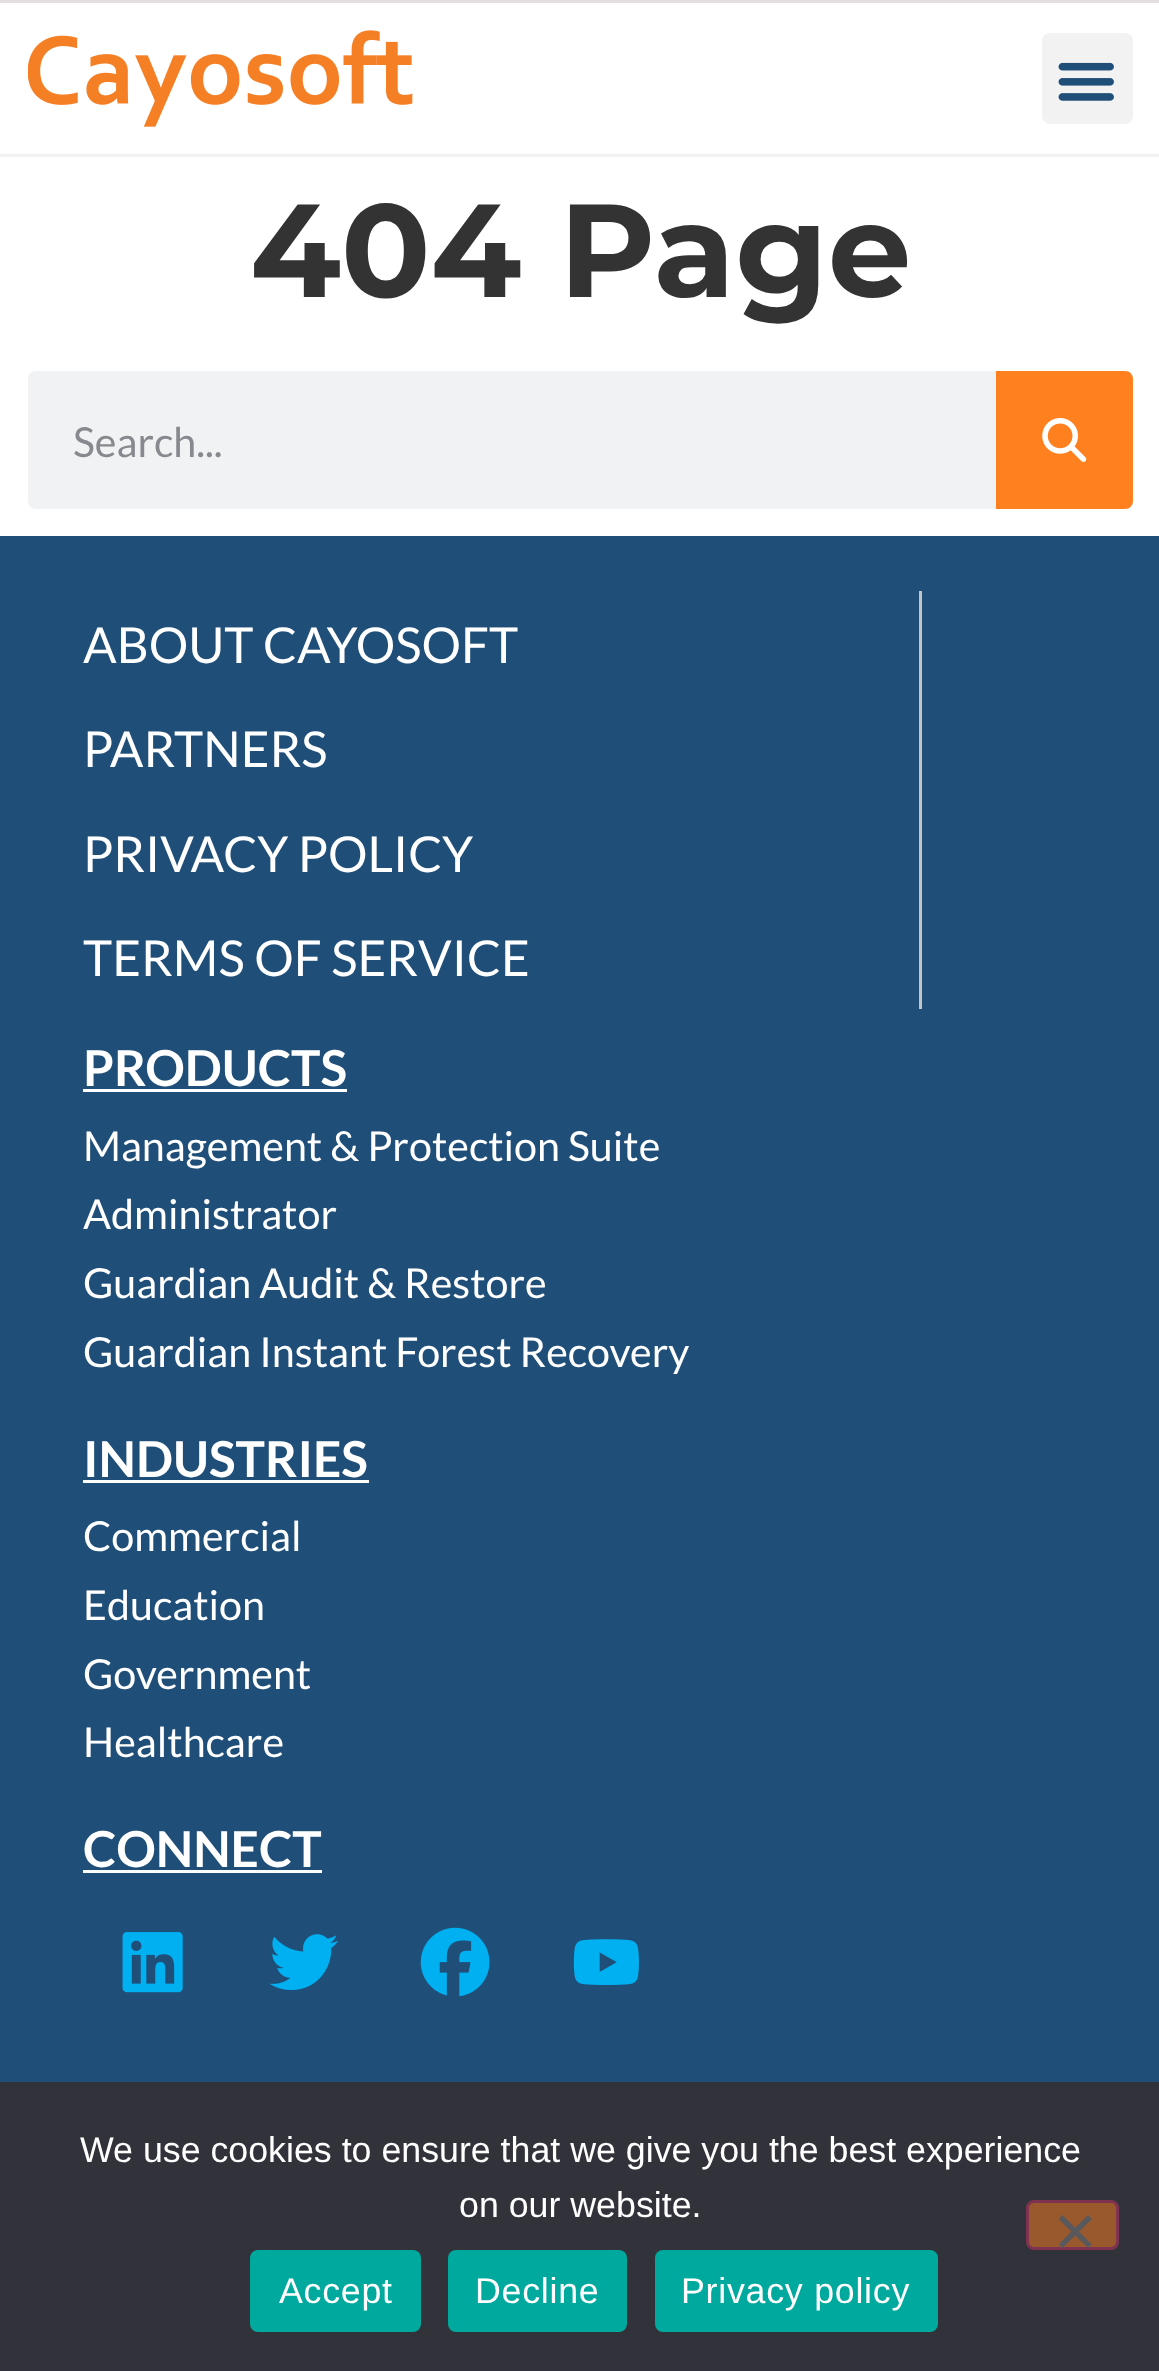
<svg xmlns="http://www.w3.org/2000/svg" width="1159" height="2371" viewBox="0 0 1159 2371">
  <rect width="100%" height="100%" fill="#fff"/>
  <path d="M0 0h1159v3H0z" fill="#e3dfdf"/>
  <path d="M0 154h1159v3H0z" fill="#f2f2f2"/>
  <image x="28" y="30" width="385" height="97" href="img/1.png"/>
  <rect x="1042" y="33" width="91" height="91" rx="8" fill="#f2f2f2"/>
  <image x="1058" y="62" width="56" height="39" href="img/2.png"/>
  <rect x="28" y="371" width="1105" height="138" rx="8" fill="#f1f2f3"/>
  <path d="M996 371H1125C1129.5 371 1133 374.5 1133 379V501C1133 505.5 1129.5 509 1125 509H996Z" fill="#ff801e"/>
  <image x="1042" y="418" width="45" height="44" href="img/3.png"/>
  <path d="M0 536h1159v1546H0z" fill="#1f4e79"/>
  <path d="M919 591h3v418H919z" fill="#c4c4c4"/>
  <path d="M83 1089h264v3H83z" fill="#fff"/>
  <path d="M83 1480h286v3H83z" fill="#fff"/>
  <path d="M83 1870h239v3H83z" fill="#fff"/>
  <image x="122" y="1932" width="61" height="61" href="img/4.png"/>
  <image x="269" y="1934" width="69" height="56" href="img/5.png"/>
  <image x="420" y="1927" width="70" height="70" href="img/6.png"/>
  <image x="573" y="1939" width="66" height="47" href="img/7.png"/>
  <path d="M0 2082h1159v289H0z" fill="#32323a"/>
  <rect x="1027.5" y="2201.5" width="90" height="47" rx="6.5" fill="#99592c" stroke="#7f3350" stroke-width="3"/>
  <path d="M1088 2215L1092 2219L1062.5 2248L1058.5 2244.5Z" fill="#59595d"/>
  <path d="M1058.5 2219L1062.5 2215L1092 2244.5L1088 2248Z" fill="#59595d"/>
  <rect x="250" y="2250" width="171" height="82" rx="8" fill="#00a99d"/>
  <rect x="448" y="2250" width="179" height="82" rx="8" fill="#00a99d"/>
  <rect x="655" y="2250" width="283" height="82" rx="8" fill="#00a99d"/>
  <text x="250" y="297" font-family="Montserrat" font-size="132" font-weight="bold" fill="#333">404 Page</text>
  <text x="73" y="457" font-family="Lato" font-size="41.25" fill="#868a8e">Search...</text>
  <g font-family="Lato" font-size="49.5" fill="#fff">
    <text x="83" y="663">ABOUT CAYOSOFT</text>
    <text x="83" y="767">PARTNERS</text>
    <text x="83" y="872">PRIVACY POLICY</text>
    <text x="83" y="976">TERMS OF SERVICE</text>
  </g>
  <text x="83" y="1086" font-family="Lato" font-size="49.5" font-weight="bold" fill="#fff">PRODUCTS</text>
  <g font-family="Lato" font-size="41.25" fill="#fff">
    <text x="83" y="1161">Management &amp; Protection Suite</text>
    <text x="83" y="1229">Administrator</text>
    <text x="83" y="1298">Guardian Audit &amp; Restore</text>
    <text x="83" y="1367">Guardian Instant Forest Recovery</text>
  </g>
  <text x="83" y="1477" font-family="Lato" font-size="49.5" font-weight="bold" fill="#fff">INDUSTRIES</text>
  <g font-family="Lato" font-size="41.25" fill="#fff">
    <text x="83" y="1551">Commercial</text>
    <text x="83" y="1620">Education</text>
    <text x="83" y="1689">Government</text>
    <text x="83" y="1757">Healthcare</text>
  </g>
  <text x="83" y="1867" font-family="Lato" font-size="49.5" font-weight="bold" fill="#fff">CONNECT</text>
  <g font-family="Liberation Sans" font-size="35.75" fill="#fff">
    <text x="80" y="2162">We use cookies to ensure that we give you the best experience</text>
    <text x="459" y="2217">on our website.</text>
  </g>
  <g font-family="Liberation Sans" font-size="35.75" letter-spacing="0.75" fill="#fff">
    <text x="279" y="2303">Accept</text>
    <text x="475" y="2303">Decline</text>
    <text x="681" y="2303">Privacy policy</text>
  </g>
</svg>
